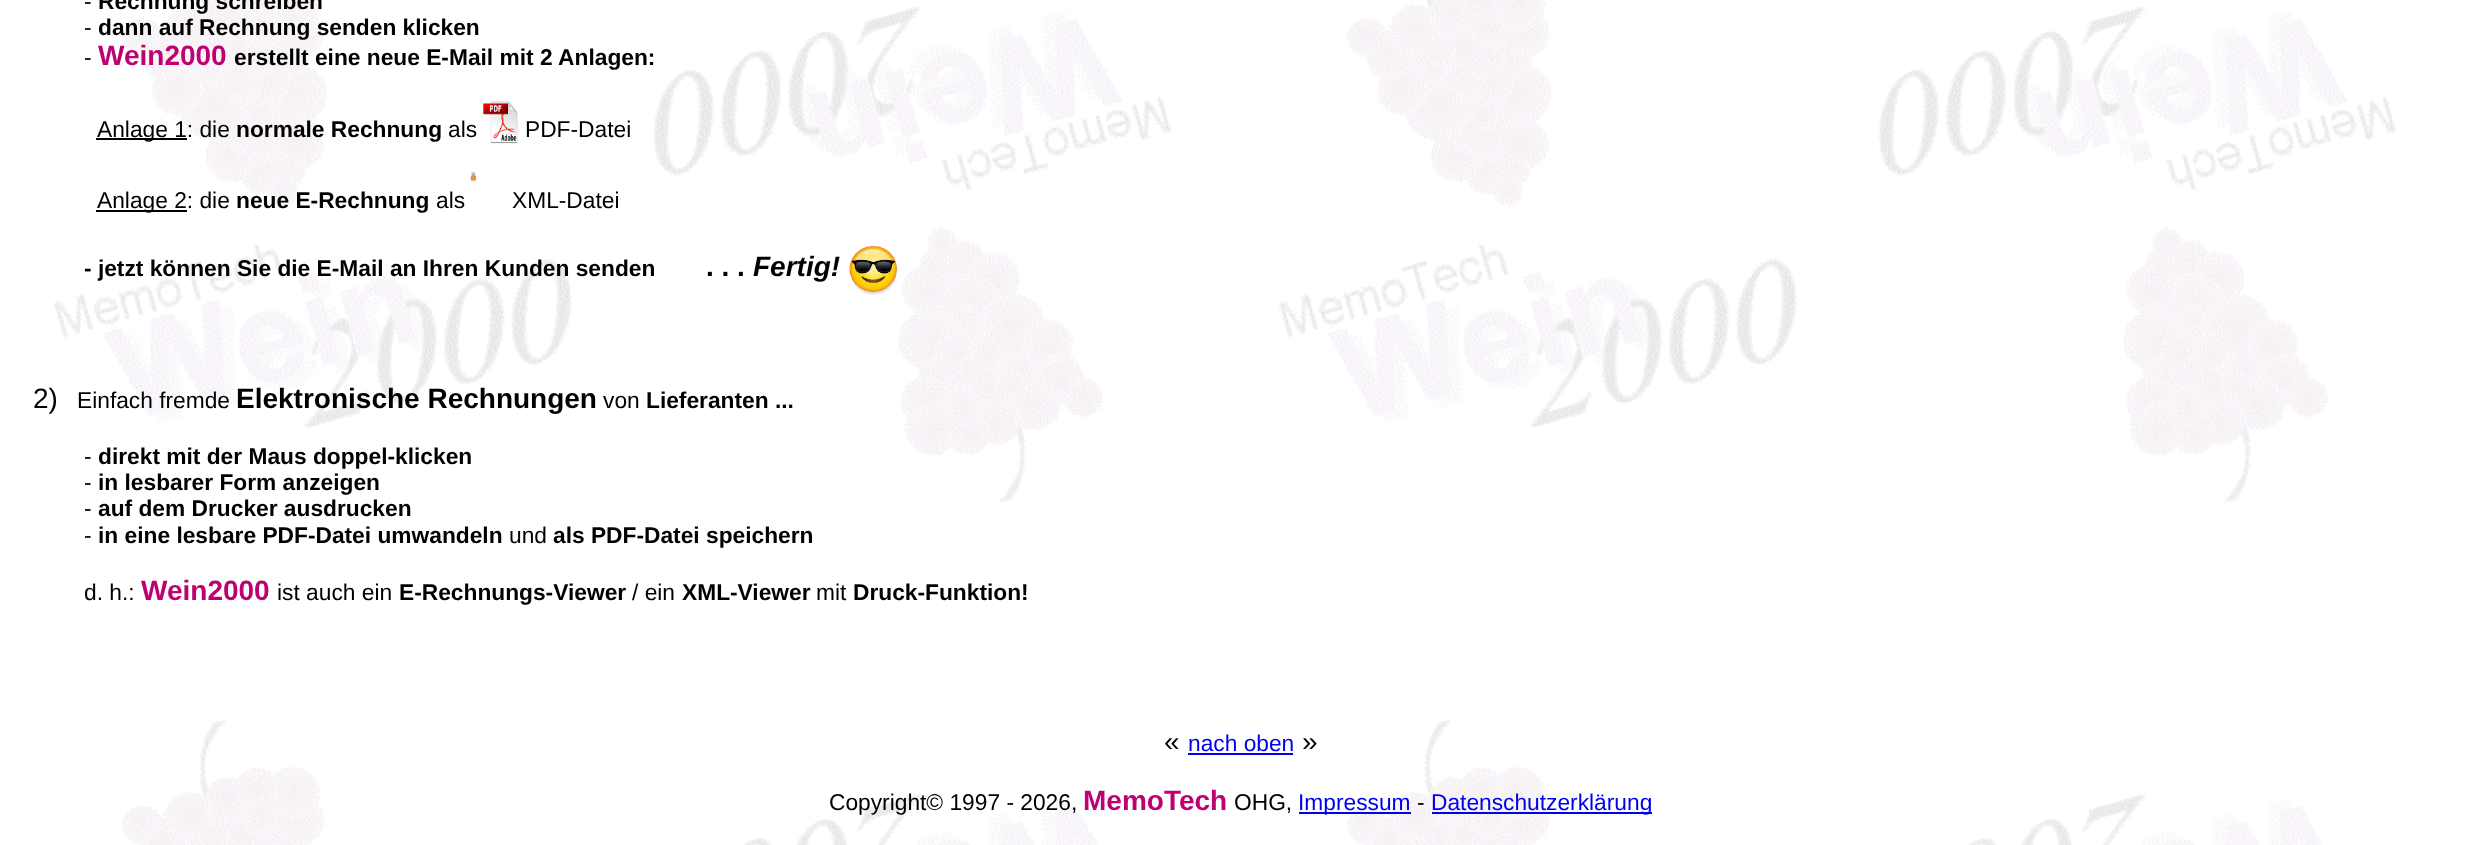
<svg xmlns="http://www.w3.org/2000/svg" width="2480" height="845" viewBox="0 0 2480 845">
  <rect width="100%" height="100%" fill="#fff"/>
  <image x="1" y="0" width="2474" height="845" href="img/1.png"/>
  <path d="M96 138h91v2H96z" fill="#000"/>
  <image x="483" y="101" width="35" height="43" href="img/2.png"/>
  <image x="470" y="171" width="6" height="11" href="img/3.png"/>
  <path d="M96 210h91v2H96z" fill="#000"/>
  <image x="849" y="245" width="48" height="50" href="img/4.png"/>
  <path d="M1188 753h105v2H1188z" fill="#00e"/>
  <path d="M1299 812h112v2H1299z" fill="#00e"/>
  <path d="M1432 812h220v2H1432z" fill="#00e"/>
  <text x="84" y="9" font-family="Liberation Sans" font-size="22.75" fill="#000">-</text>
  <text x="98" y="9" font-family="Liberation Sans" font-size="22.75" font-weight="bold" fill="#000">Rechnung schreiben</text>
  <text x="84" y="35" font-family="Liberation Sans" font-size="22.75" fill="#000">-</text>
  <text x="98" y="35" font-family="Liberation Sans" font-size="22.75" font-weight="bold" fill="#000">dann auf Rechnung senden klicken</text>
  <text x="84" y="65" font-family="Liberation Sans" font-size="22.75" fill="#000">-</text>
  <text x="98" y="65" font-family="Liberation Sans" font-size="28" font-weight="bold" fill="#bf0070">Wein2000</text>
  <text x="234" y="65" font-family="Liberation Sans" font-size="22.75" font-weight="bold" fill="#000">erstellt eine neue E-Mail mit 2 Anlagen:</text>
  <text x="97" y="137" font-family="Liberation Sans" font-size="22.75" fill="#000">Anlage 1: die</text>
  <text x="236" y="137" font-family="Liberation Sans" font-size="22.75" font-weight="bold" fill="#000">normale Rechnung</text>
  <g font-family="Liberation Sans" font-size="22.75" fill="#000">
    <text x="448" y="137">als</text>
    <text x="525" y="137">PDF-Datei</text>
    <text x="97" y="208">Anlage 2: die</text>
  </g>
  <text x="236" y="208" font-family="Liberation Sans" font-size="22.75" font-weight="bold" fill="#000">neue E-Rechnung</text>
  <g font-family="Liberation Sans" font-size="22.75" fill="#000">
    <text x="436" y="208">als</text>
    <text x="512" y="208">XML-Datei</text>
  </g>
  <text x="84" y="276" font-family="Liberation Sans" font-size="22.75" font-weight="bold" fill="#000">- jetzt können Sie die E-Mail an Ihren Kunden senden</text>
  <text x="706" y="276" font-family="Liberation Sans" font-size="28" font-weight="bold" fill="#000">. . .</text>
  <text x="753" y="276" font-family="Liberation Sans" font-size="28" font-weight="bold" font-style="italic" fill="#000">Fertig!</text>
  <text x="33" y="408" font-family="Liberation Sans" font-size="28" fill="#000">2)</text>
  <text x="77" y="408" font-family="Liberation Sans" font-size="22.75" fill="#000">Einfach fremde</text>
  <text x="236" y="408" font-family="Liberation Sans" font-size="28" font-weight="bold" fill="#000">Elektronische Rechnungen</text>
  <text x="603" y="408" font-family="Liberation Sans" font-size="22.75" fill="#000">von</text>
  <text x="646" y="408" font-family="Liberation Sans" font-size="22.75" font-weight="bold" fill="#000">Lieferanten ...</text>
  <text x="84" y="464" font-family="Liberation Sans" font-size="22.75" fill="#000">-</text>
  <text x="98" y="464" font-family="Liberation Sans" font-size="22.75" font-weight="bold" fill="#000">direkt mit der Maus doppel-klicken</text>
  <text x="84" y="490" font-family="Liberation Sans" font-size="22.75" fill="#000">-</text>
  <text x="98" y="490" font-family="Liberation Sans" font-size="22.75" font-weight="bold" fill="#000">in lesbarer Form anzeigen</text>
  <text x="84" y="516" font-family="Liberation Sans" font-size="22.75" fill="#000">-</text>
  <text x="98" y="516" font-family="Liberation Sans" font-size="22.75" font-weight="bold" fill="#000">auf dem Drucker ausdrucken</text>
  <text x="84" y="543" font-family="Liberation Sans" font-size="22.75" fill="#000">-</text>
  <text x="98" y="543" font-family="Liberation Sans" font-size="22.75" font-weight="bold" fill="#000">in eine lesbare PDF-Datei umwandeln</text>
  <text x="509" y="543" font-family="Liberation Sans" font-size="22.75" fill="#000">und</text>
  <text x="553" y="543" font-family="Liberation Sans" font-size="22.75" font-weight="bold" fill="#000">als PDF-Datei speichern</text>
  <text x="84" y="600" font-family="Liberation Sans" font-size="22.75" fill="#000">d. h.:</text>
  <text x="141" y="600" font-family="Liberation Sans" font-size="28" font-weight="bold" fill="#bf0070">Wein2000</text>
  <text x="277" y="600" font-family="Liberation Sans" font-size="22.75" fill="#000">ist auch ein</text>
  <text x="399" y="600" font-family="Liberation Sans" font-size="22.75" font-weight="bold" fill="#000">E-Rechnungs-Viewer</text>
  <text x="632" y="600" font-family="Liberation Sans" font-size="22.75" fill="#000">/ ein</text>
  <text x="682" y="600" font-family="Liberation Sans" font-size="22.75" font-weight="bold" fill="#000">XML-Viewer</text>
  <text x="816" y="600" font-family="Liberation Sans" font-size="22.75" fill="#000">mit</text>
  <text x="853" y="600" font-family="Liberation Sans" font-size="22.75" font-weight="bold" fill="#000">Druck-Funktion!</text>
  <text x="1164" y="751" font-family="Liberation Sans" font-size="28" fill="#000">«</text>
  <text x="1188" y="751" font-family="Liberation Sans" font-size="22.75" fill="#00e">nach oben</text>
  <text x="1302" y="751" font-family="Liberation Sans" font-size="28" fill="#000">»</text>
  <text x="829" y="810" font-family="Liberation Sans" font-size="22.75" fill="#000">Copyright© 1997 - 2026,</text>
  <text x="1083" y="810" font-family="Liberation Sans" font-size="28" font-weight="bold" fill="#bf0070">MemoTech</text>
  <text x="1234" y="810" font-family="Liberation Sans" font-size="22.75" fill="#000">OHG,</text>
  <text x="1298" y="810" font-family="Liberation Sans" font-size="22.75" fill="#00e">Impressum</text>
  <text x="1417" y="810" font-family="Liberation Sans" font-size="22.75" fill="#000">-</text>
  <text x="1431" y="810" font-family="Liberation Sans" font-size="22.75" fill="#00e">Datenschutzerklärung</text>
</svg>
